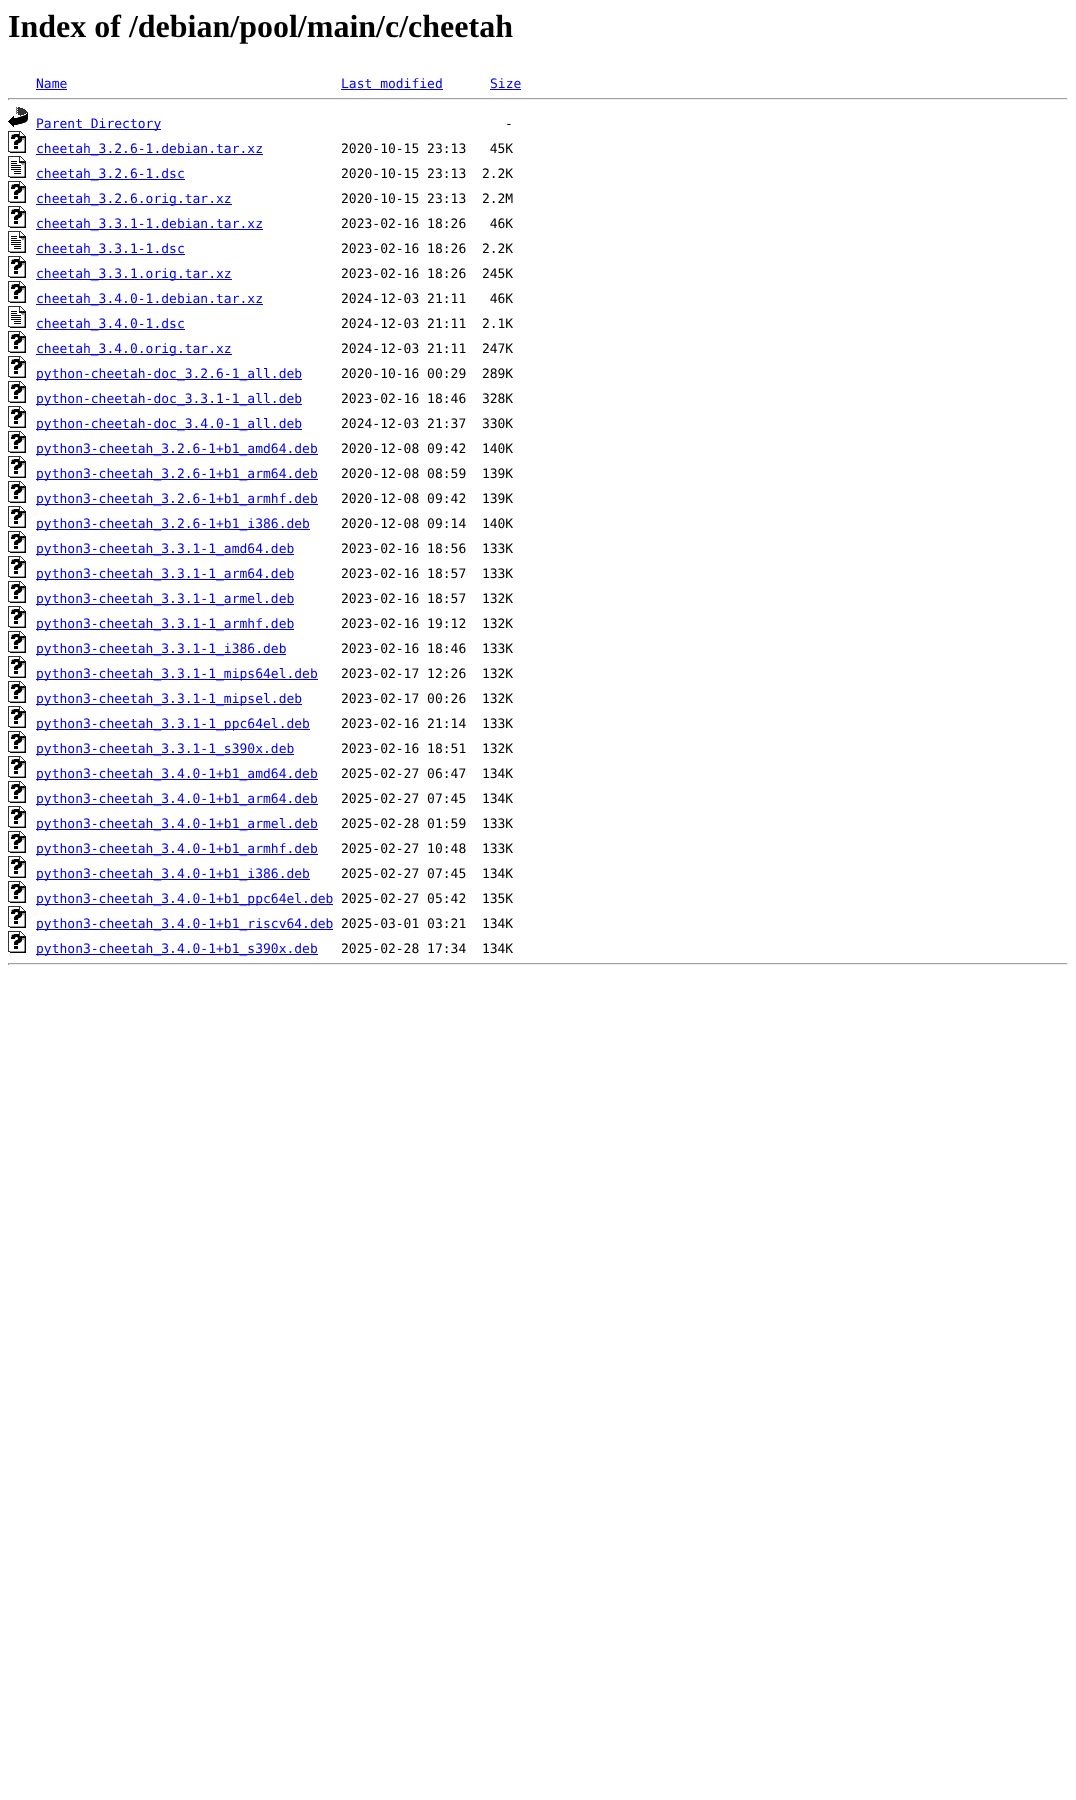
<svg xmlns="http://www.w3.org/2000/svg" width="1076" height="1800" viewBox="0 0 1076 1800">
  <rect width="100%" height="100%" fill="#fff"/>
  <path d="M36 89h31v1H36z" fill="#00e"/>
  <path d="M341 89h102v1H341z" fill="#00e"/>
  <path d="M490 89h31v1H490z" fill="#00e"/>
  <path d="M8 98h1060v1H8z" fill="#9f9f9f"/>
  <path d="M1067 98h1v2H1067z" fill="#eee"/>
  <path d="M8 99h1060v1H8z" fill="#eee"/>
  <path d="M8 98h1v2H8z" fill="#9f9f9f"/>
  <image x="8" y="107" width="20" height="20" href="img/1.png"/>
  <path d="M36 129h125v1H36z" fill="#00e"/>
  <image x="8" y="131" width="18" height="22" href="img/2.png"/>
  <path d="M36 154h227v1H36z" fill="#00e"/>
  <image x="8" y="156" width="18" height="22" href="img/3.png"/>
  <path d="M36 179h149v1H36z" fill="#00e"/>
  <image x="8" y="181" width="18" height="22" href="img/2.png"/>
  <path d="M36 204h196v1H36z" fill="#00e"/>
  <image x="8" y="206" width="18" height="22" href="img/2.png"/>
  <path d="M36 229h227v1H36z" fill="#00e"/>
  <image x="8" y="231" width="18" height="22" href="img/3.png"/>
  <path d="M36 254h149v1H36z" fill="#00e"/>
  <image x="8" y="256" width="18" height="22" href="img/2.png"/>
  <path d="M36 279h196v1H36z" fill="#00e"/>
  <image x="8" y="281" width="18" height="22" href="img/2.png"/>
  <path d="M36 304h227v1H36z" fill="#00e"/>
  <image x="8" y="306" width="18" height="22" href="img/3.png"/>
  <path d="M36 329h149v1H36z" fill="#00e"/>
  <image x="8" y="331" width="18" height="22" href="img/2.png"/>
  <path d="M36 354h196v1H36z" fill="#00e"/>
  <image x="8" y="356" width="18" height="22" href="img/2.png"/>
  <path d="M36 379h266v1H36z" fill="#00e"/>
  <image x="8" y="381" width="18" height="22" href="img/2.png"/>
  <path d="M36 404h266v1H36z" fill="#00e"/>
  <image x="8" y="406" width="18" height="22" href="img/2.png"/>
  <path d="M36 429h266v1H36z" fill="#00e"/>
  <image x="8" y="431" width="18" height="22" href="img/2.png"/>
  <path d="M36 454h282v1H36z" fill="#00e"/>
  <image x="8" y="456" width="18" height="22" href="img/2.png"/>
  <path d="M36 479h282v1H36z" fill="#00e"/>
  <image x="8" y="481" width="18" height="22" href="img/2.png"/>
  <path d="M36 504h282v1H36z" fill="#00e"/>
  <image x="8" y="506" width="18" height="22" href="img/2.png"/>
  <path d="M36 529h274v1H36z" fill="#00e"/>
  <image x="8" y="531" width="18" height="22" href="img/2.png"/>
  <path d="M36 554h258v1H36z" fill="#00e"/>
  <image x="8" y="556" width="18" height="22" href="img/2.png"/>
  <path d="M36 579h258v1H36z" fill="#00e"/>
  <image x="8" y="581" width="18" height="22" href="img/2.png"/>
  <path d="M36 604h258v1H36z" fill="#00e"/>
  <image x="8" y="606" width="18" height="22" href="img/2.png"/>
  <path d="M36 629h258v1H36z" fill="#00e"/>
  <image x="8" y="631" width="18" height="22" href="img/2.png"/>
  <path d="M36 654h250v1H36z" fill="#00e"/>
  <image x="8" y="656" width="18" height="22" href="img/2.png"/>
  <path d="M36 679h282v1H36z" fill="#00e"/>
  <image x="8" y="681" width="18" height="22" href="img/2.png"/>
  <path d="M36 704h266v1H36z" fill="#00e"/>
  <image x="8" y="706" width="18" height="22" href="img/2.png"/>
  <path d="M36 729h274v1H36z" fill="#00e"/>
  <image x="8" y="731" width="18" height="22" href="img/2.png"/>
  <path d="M36 754h258v1H36z" fill="#00e"/>
  <image x="8" y="756" width="18" height="22" href="img/2.png"/>
  <path d="M36 779h282v1H36z" fill="#00e"/>
  <image x="8" y="781" width="18" height="22" href="img/2.png"/>
  <path d="M36 804h282v1H36z" fill="#00e"/>
  <image x="8" y="806" width="18" height="22" href="img/2.png"/>
  <path d="M36 829h282v1H36z" fill="#00e"/>
  <image x="8" y="831" width="18" height="22" href="img/2.png"/>
  <path d="M36 854h282v1H36z" fill="#00e"/>
  <image x="8" y="856" width="18" height="22" href="img/2.png"/>
  <path d="M36 879h274v1H36z" fill="#00e"/>
  <image x="8" y="881" width="18" height="22" href="img/2.png"/>
  <path d="M36 904h297v1H36z" fill="#00e"/>
  <image x="8" y="906" width="18" height="22" href="img/2.png"/>
  <path d="M36 929h297v1H36z" fill="#00e"/>
  <image x="8" y="931" width="18" height="22" href="img/2.png"/>
  <path d="M36 954h282v1H36z" fill="#00e"/>
  <path d="M8 963h1060v1H8z" fill="#9f9f9f"/>
  <path d="M1067 963h1v2H1067z" fill="#eee"/>
  <path d="M8 964h1060v1H8z" fill="#eee"/>
  <path d="M8 963h1v2H8z" fill="#9f9f9f"/>
  <text x="8" y="37" font-family="Liberation Serif" font-size="32" font-weight="bold" fill="#000">Index of /debian/pool/main/c/cheetah</text>
  <g font-family="DejaVu Sans Mono" font-size="13" fill="#00e">
    <text x="36" y="88">Name</text>
    <text x="341" y="88">Last modified</text>
    <text x="490" y="88">Size</text>
    <text x="36" y="128">Parent Directory</text>
  </g>
  <text x="505" y="128" font-family="DejaVu Sans Mono" font-size="13" fill="#000">-</text>
  <text x="36" y="153" font-family="DejaVu Sans Mono" font-size="13" fill="#00e">cheetah_3.2.6-1.debian.tar.xz</text>
  <text x="341" y="153" font-family="DejaVu Sans Mono" font-size="13" fill="#000" xml:space="preserve">2020-10-15 23:13   45K</text>
  <text x="36" y="178" font-family="DejaVu Sans Mono" font-size="13" fill="#00e">cheetah_3.2.6-1.dsc</text>
  <text x="341" y="178" font-family="DejaVu Sans Mono" font-size="13" fill="#000" xml:space="preserve">2020-10-15 23:13  2.2K</text>
  <text x="36" y="203" font-family="DejaVu Sans Mono" font-size="13" fill="#00e">cheetah_3.2.6.orig.tar.xz</text>
  <text x="341" y="203" font-family="DejaVu Sans Mono" font-size="13" fill="#000" xml:space="preserve">2020-10-15 23:13  2.2M</text>
  <text x="36" y="228" font-family="DejaVu Sans Mono" font-size="13" fill="#00e">cheetah_3.3.1-1.debian.tar.xz</text>
  <text x="341" y="228" font-family="DejaVu Sans Mono" font-size="13" fill="#000" xml:space="preserve">2023-02-16 18:26   46K</text>
  <text x="36" y="253" font-family="DejaVu Sans Mono" font-size="13" fill="#00e">cheetah_3.3.1-1.dsc</text>
  <text x="341" y="253" font-family="DejaVu Sans Mono" font-size="13" fill="#000" xml:space="preserve">2023-02-16 18:26  2.2K</text>
  <text x="36" y="278" font-family="DejaVu Sans Mono" font-size="13" fill="#00e">cheetah_3.3.1.orig.tar.xz</text>
  <text x="341" y="278" font-family="DejaVu Sans Mono" font-size="13" fill="#000" xml:space="preserve">2023-02-16 18:26  245K</text>
  <text x="36" y="303" font-family="DejaVu Sans Mono" font-size="13" fill="#00e">cheetah_3.4.0-1.debian.tar.xz</text>
  <text x="341" y="303" font-family="DejaVu Sans Mono" font-size="13" fill="#000" xml:space="preserve">2024-12-03 21:11   46K</text>
  <text x="36" y="328" font-family="DejaVu Sans Mono" font-size="13" fill="#00e">cheetah_3.4.0-1.dsc</text>
  <text x="341" y="328" font-family="DejaVu Sans Mono" font-size="13" fill="#000" xml:space="preserve">2024-12-03 21:11  2.1K</text>
  <text x="36" y="353" font-family="DejaVu Sans Mono" font-size="13" fill="#00e">cheetah_3.4.0.orig.tar.xz</text>
  <text x="341" y="353" font-family="DejaVu Sans Mono" font-size="13" fill="#000" xml:space="preserve">2024-12-03 21:11  247K</text>
  <text x="36" y="378" font-family="DejaVu Sans Mono" font-size="13" fill="#00e">python-cheetah-doc_3.2.6-1_all.deb</text>
  <text x="341" y="378" font-family="DejaVu Sans Mono" font-size="13" fill="#000" xml:space="preserve">2020-10-16 00:29  289K</text>
  <text x="36" y="403" font-family="DejaVu Sans Mono" font-size="13" fill="#00e">python-cheetah-doc_3.3.1-1_all.deb</text>
  <text x="341" y="403" font-family="DejaVu Sans Mono" font-size="13" fill="#000" xml:space="preserve">2023-02-16 18:46  328K</text>
  <text x="36" y="428" font-family="DejaVu Sans Mono" font-size="13" fill="#00e">python-cheetah-doc_3.4.0-1_all.deb</text>
  <text x="341" y="428" font-family="DejaVu Sans Mono" font-size="13" fill="#000" xml:space="preserve">2024-12-03 21:37  330K</text>
  <text x="36" y="453" font-family="DejaVu Sans Mono" font-size="13" fill="#00e">python3-cheetah_3.2.6-1+b1_amd64.deb</text>
  <text x="341" y="453" font-family="DejaVu Sans Mono" font-size="13" fill="#000" xml:space="preserve">2020-12-08 09:42  140K</text>
  <text x="36" y="478" font-family="DejaVu Sans Mono" font-size="13" fill="#00e">python3-cheetah_3.2.6-1+b1_arm64.deb</text>
  <text x="341" y="478" font-family="DejaVu Sans Mono" font-size="13" fill="#000" xml:space="preserve">2020-12-08 08:59  139K</text>
  <text x="36" y="503" font-family="DejaVu Sans Mono" font-size="13" fill="#00e">python3-cheetah_3.2.6-1+b1_armhf.deb</text>
  <text x="341" y="503" font-family="DejaVu Sans Mono" font-size="13" fill="#000" xml:space="preserve">2020-12-08 09:42  139K</text>
  <text x="36" y="528" font-family="DejaVu Sans Mono" font-size="13" fill="#00e">python3-cheetah_3.2.6-1+b1_i386.deb</text>
  <text x="341" y="528" font-family="DejaVu Sans Mono" font-size="13" fill="#000" xml:space="preserve">2020-12-08 09:14  140K</text>
  <text x="36" y="553" font-family="DejaVu Sans Mono" font-size="13" fill="#00e">python3-cheetah_3.3.1-1_amd64.deb</text>
  <text x="341" y="553" font-family="DejaVu Sans Mono" font-size="13" fill="#000" xml:space="preserve">2023-02-16 18:56  133K</text>
  <text x="36" y="578" font-family="DejaVu Sans Mono" font-size="13" fill="#00e">python3-cheetah_3.3.1-1_arm64.deb</text>
  <text x="341" y="578" font-family="DejaVu Sans Mono" font-size="13" fill="#000" xml:space="preserve">2023-02-16 18:57  133K</text>
  <text x="36" y="603" font-family="DejaVu Sans Mono" font-size="13" fill="#00e">python3-cheetah_3.3.1-1_armel.deb</text>
  <text x="341" y="603" font-family="DejaVu Sans Mono" font-size="13" fill="#000" xml:space="preserve">2023-02-16 18:57  132K</text>
  <text x="36" y="628" font-family="DejaVu Sans Mono" font-size="13" fill="#00e">python3-cheetah_3.3.1-1_armhf.deb</text>
  <text x="341" y="628" font-family="DejaVu Sans Mono" font-size="13" fill="#000" xml:space="preserve">2023-02-16 19:12  132K</text>
  <text x="36" y="653" font-family="DejaVu Sans Mono" font-size="13" fill="#00e">python3-cheetah_3.3.1-1_i386.deb</text>
  <text x="341" y="653" font-family="DejaVu Sans Mono" font-size="13" fill="#000" xml:space="preserve">2023-02-16 18:46  133K</text>
  <text x="36" y="678" font-family="DejaVu Sans Mono" font-size="13" fill="#00e">python3-cheetah_3.3.1-1_mips64el.deb</text>
  <text x="341" y="678" font-family="DejaVu Sans Mono" font-size="13" fill="#000" xml:space="preserve">2023-02-17 12:26  132K</text>
  <text x="36" y="703" font-family="DejaVu Sans Mono" font-size="13" fill="#00e">python3-cheetah_3.3.1-1_mipsel.deb</text>
  <text x="341" y="703" font-family="DejaVu Sans Mono" font-size="13" fill="#000" xml:space="preserve">2023-02-17 00:26  132K</text>
  <text x="36" y="728" font-family="DejaVu Sans Mono" font-size="13" fill="#00e">python3-cheetah_3.3.1-1_ppc64el.deb</text>
  <text x="341" y="728" font-family="DejaVu Sans Mono" font-size="13" fill="#000" xml:space="preserve">2023-02-16 21:14  133K</text>
  <text x="36" y="753" font-family="DejaVu Sans Mono" font-size="13" fill="#00e">python3-cheetah_3.3.1-1_s390x.deb</text>
  <text x="341" y="753" font-family="DejaVu Sans Mono" font-size="13" fill="#000" xml:space="preserve">2023-02-16 18:51  132K</text>
  <text x="36" y="778" font-family="DejaVu Sans Mono" font-size="13" fill="#00e">python3-cheetah_3.4.0-1+b1_amd64.deb</text>
  <text x="341" y="778" font-family="DejaVu Sans Mono" font-size="13" fill="#000" xml:space="preserve">2025-02-27 06:47  134K</text>
  <text x="36" y="803" font-family="DejaVu Sans Mono" font-size="13" fill="#00e">python3-cheetah_3.4.0-1+b1_arm64.deb</text>
  <text x="341" y="803" font-family="DejaVu Sans Mono" font-size="13" fill="#000" xml:space="preserve">2025-02-27 07:45  134K</text>
  <text x="36" y="828" font-family="DejaVu Sans Mono" font-size="13" fill="#00e">python3-cheetah_3.4.0-1+b1_armel.deb</text>
  <text x="341" y="828" font-family="DejaVu Sans Mono" font-size="13" fill="#000" xml:space="preserve">2025-02-28 01:59  133K</text>
  <text x="36" y="853" font-family="DejaVu Sans Mono" font-size="13" fill="#00e">python3-cheetah_3.4.0-1+b1_armhf.deb</text>
  <text x="341" y="853" font-family="DejaVu Sans Mono" font-size="13" fill="#000" xml:space="preserve">2025-02-27 10:48  133K</text>
  <text x="36" y="878" font-family="DejaVu Sans Mono" font-size="13" fill="#00e">python3-cheetah_3.4.0-1+b1_i386.deb</text>
  <text x="341" y="878" font-family="DejaVu Sans Mono" font-size="13" fill="#000" xml:space="preserve">2025-02-27 07:45  134K</text>
  <text x="36" y="903" font-family="DejaVu Sans Mono" font-size="13" fill="#00e">python3-cheetah_3.4.0-1+b1_ppc64el.deb</text>
  <text x="341" y="903" font-family="DejaVu Sans Mono" font-size="13" fill="#000" xml:space="preserve">2025-02-27 05:42  135K</text>
  <text x="36" y="928" font-family="DejaVu Sans Mono" font-size="13" fill="#00e">python3-cheetah_3.4.0-1+b1_riscv64.deb</text>
  <text x="341" y="928" font-family="DejaVu Sans Mono" font-size="13" fill="#000" xml:space="preserve">2025-03-01 03:21  134K</text>
  <text x="36" y="953" font-family="DejaVu Sans Mono" font-size="13" fill="#00e">python3-cheetah_3.4.0-1+b1_s390x.deb</text>
  <text x="341" y="953" font-family="DejaVu Sans Mono" font-size="13" fill="#000" xml:space="preserve">2025-02-28 17:34  134K</text>
</svg>
